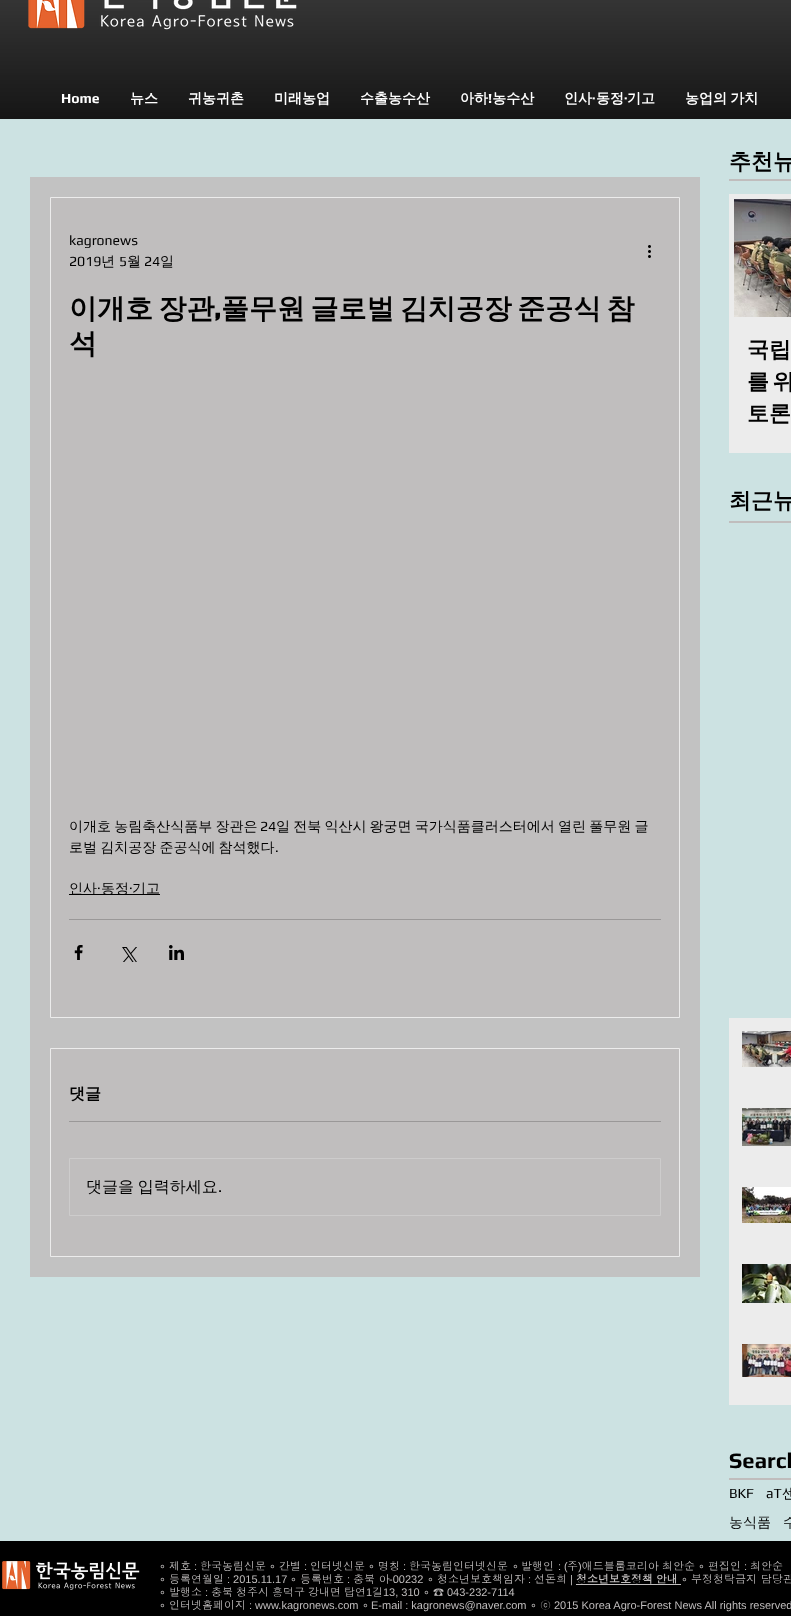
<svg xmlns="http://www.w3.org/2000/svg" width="791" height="1616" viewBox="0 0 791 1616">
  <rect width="100%" height="100%" fill="#000"/>
  <image x="0" y="0" width="791" height="119" href="img/1.png"/>
  <image x="28" y="0" width="269" height="30" href="img/2.png"/>
  <path d="M0 119h791v1422H0z" fill="#cce2e2"/>
  <path d="M729 179h62v2H729z" fill="#c0bdbd"/>
  <path d="M30 177h670v1100H30z" fill="#c2c2c2"/>
  <path d="M50.5 197.5h629v820H50.5z" fill="#c0bebe" stroke="#ececec"/>
  <image x="648" y="245" width="3" height="13" href="img/3.png"/>
  <path d="M69 894h91v1H69z" fill="#000"/>
  <path d="M69 919h592v1H69z" fill="#9a9898"/>
  <image x="74" y="945" width="9" height="15" href="img/4.png"/>
  <image x="122" y="947" width="15" height="15" href="img/5.png"/>
  <image x="169" y="945" width="15" height="15" href="img/6.png"/>
  <path d="M50.5 1048.5h629v208H50.5z" fill="#c0bebe" stroke="#ececec"/>
  <path d="M69 1121h592v1H69z" fill="#9a9898"/>
  <path d="M69.5 1158.5h591v57H69.5z" fill="none" stroke="#cdcccc"/>
  <path d="M729 194h62v259H729z" fill="#ececec"/>
  <image x="734" y="199" width="57" height="118" href="img/7.png"/>
  <path d="M729 521h62v2H729z" fill="#c0bdbd"/>
  <path d="M729 1018h62v387H729z" fill="#ececec"/>
  <image x="742" y="1031" width="49" height="36" href="img/8.png"/>
  <image x="742" y="1108" width="49" height="38" href="img/9.png"/>
  <image x="742" y="1187" width="49" height="36" href="img/10.png"/>
  <image x="742" y="1264" width="49" height="39" href="img/11.png"/>
  <image x="742" y="1344" width="49" height="33" href="img/12.png"/>
  <path d="M729 1478h62v2H729z" fill="#c0bdbd"/>
  <image x="2" y="1561" width="138" height="29" href="img/13.png"/>
  <path d="M576 1584h105v1H576z" fill="#c0bdbd"/>
  <text x="61" y="103" font-family="Play" font-size="14" font-weight="bold" fill="#fff">Home</text>
  <g font-family="WenQuanYi Zen Hei" font-size="14" font-weight="bold" fill="#fff">
    <text x="130" y="103">뉴스</text>
    <text x="188" y="103">귀농귀촌</text>
    <text x="274" y="103">미래농업</text>
    <text x="360" y="103">수출농수산</text>
    <text x="460" y="103">아하 농수산</text>
  </g>
  <text x="488" y="103" font-family="Play" font-size="14" font-weight="bold" fill="#fff">!</text>
  <text x="564" y="103" font-family="WenQuanYi Zen Hei" font-size="14" font-weight="bold" fill="#fff">인사</text>
  <text x="592" y="103" font-family="Play" font-size="14" font-weight="bold" fill="#fff">·</text>
  <text x="596" y="103" font-family="WenQuanYi Zen Hei" font-size="14" font-weight="bold" fill="#fff">동정</text>
  <text x="624" y="103" font-family="Play" font-size="14" font-weight="bold" fill="#fff">·</text>
  <g font-family="WenQuanYi Zen Hei" font-size="14" font-weight="bold" fill="#fff">
    <text x="627" y="103">기고</text>
    <text x="685" y="103" word-spacing="-1">농업의 가치</text>
  </g>
  <text x="729" y="169" font-family="WenQuanYi Zen Hei" font-size="22" font-weight="bold" fill="#000">추천뉴</text>
  <g font-family="Play" font-size="14" fill="#000">
    <text x="69" y="245">kagronews</text>
    <text x="69" y="266">2019</text>
  </g>
  <text x="101" y="266" font-family="WenQuanYi Zen Hei" font-size="14" font-weight="500" fill="#000">년</text>
  <text x="119" y="266" font-family="Play" font-size="14" fill="#000">5</text>
  <text x="127" y="266" font-family="WenQuanYi Zen Hei" font-size="14" font-weight="500" fill="#000">월</text>
  <text x="144" y="266" font-family="Play" font-size="14" fill="#000">24</text>
  <text x="160" y="266" font-family="WenQuanYi Zen Hei" font-size="14" font-weight="500" fill="#000">일</text>
  <text x="69" y="318" word-spacing="-3" font-family="WenQuanYi Zen Hei" font-size="28" font-weight="bold" fill="#000">이개호 장관</text>
  <text x="215" y="318" font-family="'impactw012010'" font-size="28" font-weight="bold" fill="#000">,</text>
  <g font-family="WenQuanYi Zen Hei" font-size="28" font-weight="bold" fill="#000">
    <text x="221" y="318" word-spacing="-3">풀무원 글로벌 김치공장 준공식 참</text>
    <text x="69" y="353">석</text>
  </g>
  <text x="69" y="831" word-spacing="-1" font-family="WenQuanYi Zen Hei" font-size="14" font-weight="500" fill="#000">이개호 농림축산식품부 장관은</text>
  <text x="260" y="831" font-family="Play" font-size="14" fill="#000">24</text>
  <g font-family="WenQuanYi Zen Hei" font-size="14" font-weight="500" fill="#000">
    <text x="276" y="831" word-spacing="-1">일 전북 익산시 왕궁면 국가식품클러스터에서 열린 풀무원 글</text>
    <text x="69" y="852" word-spacing="-1">로벌 김치공장 준공식에 참석했다</text>
  </g>
  <text x="275" y="852" font-family="Play" font-size="14" fill="#000">.</text>
  <text x="69" y="893" font-family="WenQuanYi Zen Hei" font-size="14" font-weight="500" fill="#000">인사</text>
  <text x="97" y="893" font-family="Play" font-size="14" fill="#000">·</text>
  <text x="101" y="893" font-family="WenQuanYi Zen Hei" font-size="14" font-weight="500" fill="#000">동정</text>
  <text x="129" y="893" font-family="Play" font-size="14" fill="#000">·</text>
  <text x="132" y="893" font-family="WenQuanYi Zen Hei" font-size="14" font-weight="500" fill="#000">기고</text>
  <text x="69" y="1099" font-family="WenQuanYi Zen Hei" font-size="16" font-weight="bold" fill="#000">댓글</text>
  <text x="86" y="1192" word-spacing="-1" font-family="WenQuanYi Zen Hei" font-size="16" font-weight="500" fill="#000">댓글을 입력하세요</text>
  <text x="218" y="1192" font-family="Play" font-size="16" fill="#000">.</text>
  <g font-family="WenQuanYi Zen Hei" font-size="22" font-weight="bold" fill="#000">
    <text x="747" y="357" word-spacing="-3">국립</text>
    <text x="747" y="389" word-spacing="-3">를 위</text>
    <text x="747" y="421">토론</text>
    <text x="729" y="508">최근뉴</text>
  </g>
  <text x="729" y="1468" font-family="Play" font-size="22" font-weight="bold" fill="#000">Search</text>
  <g font-family="Play" font-size="14" fill="#000">
    <text x="729" y="1498">BKF</text>
    <text x="766" y="1498">aT</text>
  </g>
  <g font-family="WenQuanYi Zen Hei" font-size="14" font-weight="500" fill="#000">
    <text x="782" y="1498">센</text>
    <text x="729" y="1527">농식품</text>
    <text x="783" y="1527">수</text>
  </g>
  <g font-family="Dotum" font-size="11" fill="#c0bdbd">
    <text x="169" y="1570">제호</text>
    <text x="200" y="1570">한국농림신문</text>
    <text x="279" y="1570">간별</text>
    <text x="310" y="1570">인터넷신문</text>
    <text x="378" y="1570">명칭</text>
    <text x="409" y="1570">한국농림인터넷신문</text>
    <text x="521" y="1570">발행인</text>
  </g>
  <text x="558" y="1570" font-family="Liberation Sans" font-size="11" fill="#c0bdbd">: (</text>
  <g font-family="Dotum" font-size="11" fill="#c0bdbd">
    <text x="567" y="1570">주 애드블룸코리아</text>
    <text x="662" y="1570">최안순</text>
    <text x="708" y="1570">편집인</text>
    <text x="750" y="1570">최안순</text>
  </g>
  <text x="159" y="1570" font-family="DejaVu Sans" font-size="11" fill="#c0bdbd">∘</text>
  <text x="194" y="1570" font-family="Liberation Sans" font-size="11" fill="#c0bdbd">:</text>
  <text x="269" y="1570" font-family="DejaVu Sans" font-size="11" fill="#c0bdbd">∘</text>
  <text x="304" y="1570" font-family="Liberation Sans" font-size="11" fill="#c0bdbd">:</text>
  <text x="368" y="1570" font-family="DejaVu Sans" font-size="11" fill="#c0bdbd">∘</text>
  <text x="403" y="1570" font-family="Liberation Sans" font-size="11" fill="#c0bdbd">:</text>
  <text x="512" y="1570" font-family="DejaVu Sans" font-size="11" fill="#c0bdbd">∘</text>
  <text x="578" y="1570" font-family="Liberation Sans" font-size="11" fill="#c0bdbd">)</text>
  <text x="698" y="1570" font-family="DejaVu Sans" font-size="11" fill="#c0bdbd">∘</text>
  <text x="744" y="1570" font-family="Liberation Sans" font-size="11" fill="#c0bdbd">:</text>
  <text x="159" y="1583" font-family="DejaVu Sans" font-size="11" fill="#c0bdbd">∘</text>
  <text x="169" y="1583" font-family="Dotum" font-size="11" fill="#c0bdbd">등록연월일</text>
  <text x="227" y="1583" font-family="Liberation Sans" font-size="11" fill="#c0bdbd">: 2015.11.17</text>
  <text x="290" y="1583" font-family="DejaVu Sans" font-size="11" fill="#c0bdbd">∘</text>
  <text x="300" y="1583" font-family="Dotum" font-size="11" fill="#c0bdbd">등록번호</text>
  <text x="347" y="1583" font-family="Liberation Sans" font-size="11" fill="#c0bdbd">:</text>
  <text x="353" y="1583" font-family="Dotum" font-size="11" fill="#c0bdbd">충북 아</text>
  <text x="389" y="1583" font-family="Liberation Sans" font-size="11" fill="#c0bdbd">-00232</text>
  <text x="427" y="1583" font-family="DejaVu Sans" font-size="11" fill="#c0bdbd">∘</text>
  <text x="437" y="1583" font-family="Dotum" font-size="11" fill="#c0bdbd">청소년보호책임자</text>
  <text x="528" y="1583" font-family="Liberation Sans" font-size="11" fill="#c0bdbd">:</text>
  <text x="534" y="1583" font-family="Dotum" font-size="11" fill="#c0bdbd">선돈희</text>
  <text x="570" y="1583" font-family="Liberation Sans" font-size="11" fill="#c0bdbd">|</text>
  <text x="576" y="1583" word-spacing="-1" font-family="Dotum" font-size="11" font-weight="bold" fill="#c0bdbd">청소년보호정책 안내</text>
  <text x="681" y="1583" font-family="DejaVu Sans" font-size="11" fill="#c0bdbd">∘</text>
  <text x="691" y="1583" font-family="Dotum" font-size="11" fill="#c0bdbd">부정청탁금지 담당관</text>
  <text x="159" y="1596" font-family="DejaVu Sans" font-size="11" fill="#c0bdbd">∘</text>
  <text x="169" y="1596" font-family="Dotum" font-size="11" fill="#c0bdbd">발행소</text>
  <text x="205" y="1596" font-family="Liberation Sans" font-size="11" fill="#c0bdbd">:</text>
  <g font-family="Dotum" font-size="11" fill="#c0bdbd">
    <text x="211" y="1596">충북</text>
    <text x="236" y="1596">청주시</text>
    <text x="272" y="1596">흥덕구</text>
    <text x="308" y="1596">강내면</text>
    <text x="344" y="1596">탑연</text>
  </g>
  <text x="366" y="1596" font-family="Liberation Sans" font-size="11" fill="#c0bdbd">1</text>
  <text x="372" y="1596" font-family="Dotum" font-size="11" fill="#c0bdbd">길</text>
  <text x="383" y="1596" font-family="Liberation Sans" font-size="11" fill="#c0bdbd">13, 310</text>
  <text x="423" y="1596" font-family="DejaVu Sans" font-size="11" fill="#c0bdbd">∘</text>
  <text x="433" y="1596" font-family="Dotum" font-size="11" fill="#c0bdbd">☎</text>
  <text x="447" y="1596" font-family="Liberation Sans" font-size="11" fill="#c0bdbd">043-232-7114</text>
  <text x="159" y="1609" font-family="DejaVu Sans" font-size="11" fill="#c0bdbd">∘</text>
  <text x="169" y="1609" font-family="Dotum" font-size="11" fill="#c0bdbd">인터넷홈페이지</text>
  <text x="249" y="1609" font-family="Liberation Sans" font-size="11" fill="#c0bdbd">: www.kagronews.com</text>
  <text x="362" y="1609" font-family="DejaVu Sans" font-size="11" fill="#c0bdbd">∘</text>
  <text x="371" y="1609" font-family="Liberation Sans" font-size="11" fill="#c0bdbd">E-mail : kagronews@naver.com</text>
  <text x="530" y="1609" font-family="DejaVu Sans" font-size="11" fill="#c0bdbd">∘</text>
  <text x="540" y="1609" font-family="Dotum" font-size="11" fill="#c0bdbd">ⓒ</text>
  <text x="554" y="1609" font-family="Liberation Sans" font-size="11" fill="#c0bdbd">2015 Korea Agro-Forest News All rights reserved</text>
</svg>
